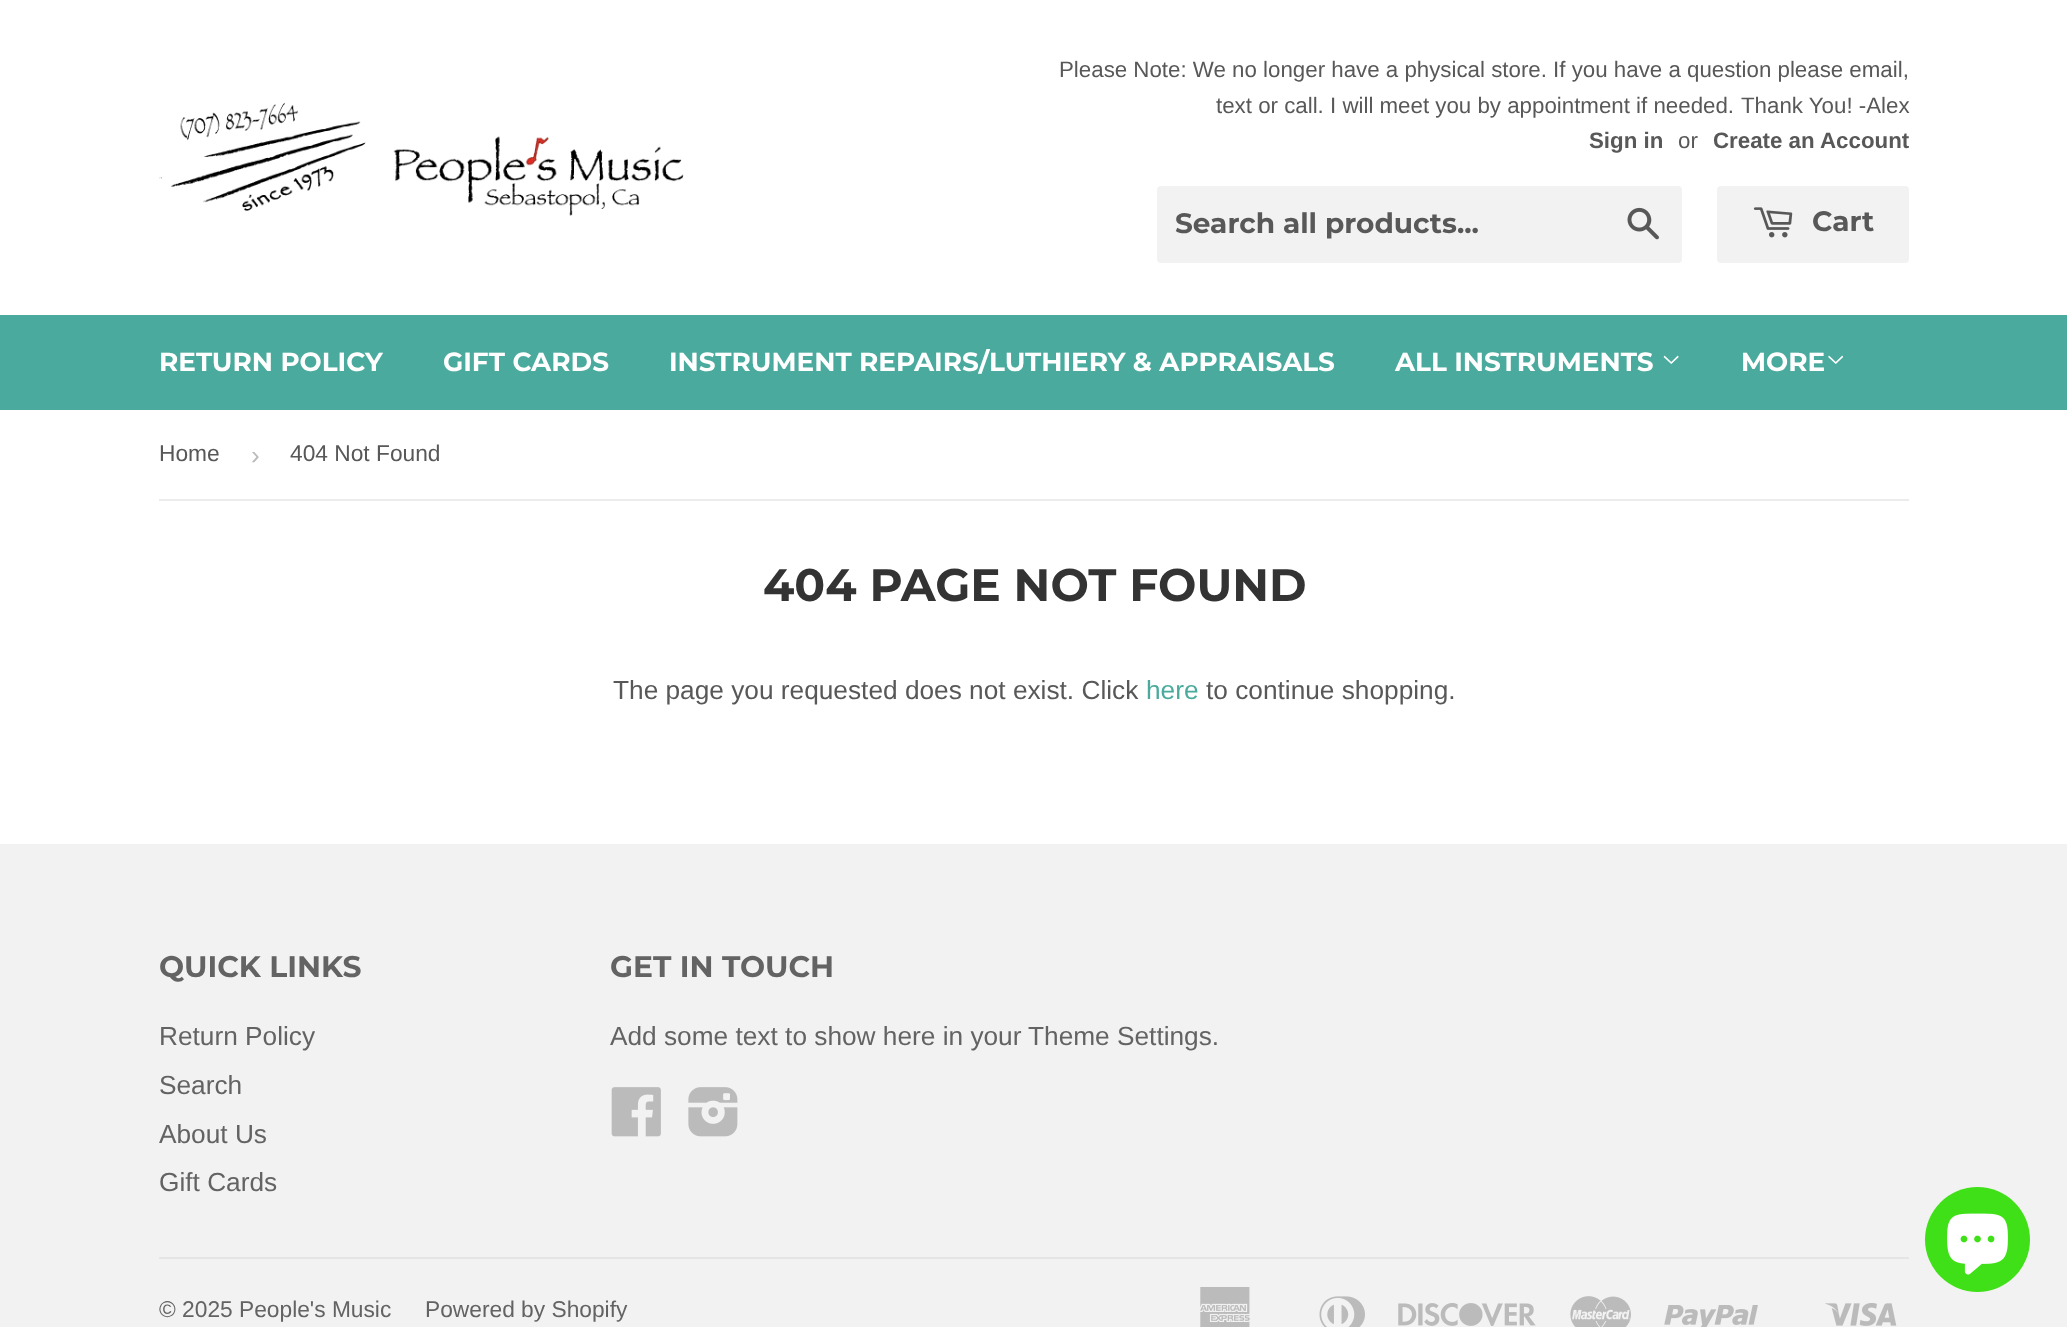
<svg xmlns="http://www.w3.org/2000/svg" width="2067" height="1327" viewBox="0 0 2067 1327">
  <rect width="100%" height="100%" fill="#fff"/>
  <image x="159" y="102" width="525" height="114" href="img/1.png"/>
  <rect x="1157" y="186" width="525" height="77" rx="4" fill="#f2f2f2"/>
  <image x="1627" y="207" width="32" height="33" href="img/2.png"/>
  <rect x="1717" y="186" width="192" height="77" rx="4" fill="#f2f2f2"/>
  <image x="1753" y="207" width="40" height="31" href="img/3.png"/>
  <path d="M0 315h2067v95H0z" fill="#49aa9d"/>
  <image x="1663" y="355" width="16" height="9" href="img/4.png"/>
  <image x="1828" y="355" width="15" height="9" href="img/5.png"/>
  <path d="M159 499h1750v2H159z" fill="#ececec"/>
  <path d="M0 844h2067v483H0z" fill="#f2f2f2"/>
  <image x="611" y="1087" width="50" height="50" href="img/6.png"/>
  <image x="688" y="1087" width="50" height="50" href="img/7.png"/>
  <path d="M159 1257h1750v2H159z" fill="#e5e5e5"/>
  <image x="1200" y="1287" width="50" height="40" href="img/8.png"/>
  <image x="1319" y="1296" width="46" height="31" href="img/9.png"/>
  <image x="1398" y="1303" width="138" height="23" href="img/10.png"/>
  <image x="1570" y="1296" width="61" height="31" href="img/11.png"/>
  <image x="1664" y="1305" width="94" height="22" href="img/12.png"/>
  <image x="1825" y="1303" width="72" height="23" href="img/13.png"/>
  <circle cx="1977.5" cy="1239.5" r="52.5" fill="#3fe017"/>
  <image x="1947" y="1213" width="61" height="62" href="img/14.png"/>
  <g font-family="Liberation Sans" font-size="22.3" fill="#585858">
    <text x="1059" y="77">Please Note: We no longer have a physical store. If you have a question please email,</text>
    <text x="1216" y="113">text or call. I will meet you by appointment if needed.</text>
    <text x="1741" y="113">Thank You! -Alex</text>
  </g>
  <text x="1589" y="148" font-family="Liberation Sans" font-size="22.3" font-weight="bold" fill="#585858">Sign in</text>
  <text x="1678" y="148" font-family="Liberation Sans" font-size="22.3" fill="#585858">or</text>
  <text x="1713" y="148" font-family="Liberation Sans" font-size="22.3" font-weight="bold" fill="#585858">Create an Account</text>
  <g font-family="Montserrat" font-size="28" font-weight="100" fill="#585858">
    <text x="1175" y="233">Search all products...</text>
    <text x="1812" y="231">Cart</text>
  </g>
  <g font-family="Montserrat" font-size="26.25" font-weight="100" fill="#fff">
    <text x="159" y="371">RETURN POLICY</text>
    <text x="443" y="371">GIFT CARDS</text>
    <text x="669" y="371">INSTRUMENT REPAIRS/LUTHIERY &amp; APPRAISALS</text>
    <text x="1395" y="371">ALL INSTRUMENTS</text>
    <text x="1741" y="371">MORE</text>
  </g>
  <text x="159" y="461" font-family="Liberation Sans" font-size="22.75" fill="#585858">Home</text>
  <text x="251" y="464" font-family="Liberation Sans" font-size="26.25" fill="#bbb">›</text>
  <text x="290" y="461" font-family="Liberation Sans" font-size="22.75" fill="#585858">404 Not Found</text>
  <text x="763" y="601" font-family="Montserrat" font-size="45.5" font-weight="100" fill="#333">404 PAGE NOT FOUND</text>
  <text x="613" y="699" font-family="Liberation Sans" font-size="26.25" fill="#585858">The page you requested does not exist. Click</text>
  <text x="1146" y="699" font-family="Liberation Sans" font-size="26.25" fill="#49aa9d">here</text>
  <text x="1206" y="699" font-family="Liberation Sans" font-size="26.25" fill="#585858">to continue shopping.</text>
  <text x="159" y="977" font-family="Montserrat" font-size="29.75" font-weight="100" fill="#636363">QUICK LINKS</text>
  <g font-family="Liberation Sans" font-size="26.25" fill="#636363">
    <text x="159" y="1045">Return Policy</text>
    <text x="159" y="1094">Search</text>
    <text x="159" y="1143">About Us</text>
    <text x="159" y="1191">Gift Cards</text>
  </g>
  <text x="610" y="977" font-family="Montserrat" font-size="29.75" font-weight="100" fill="#636363">GET IN TOUCH</text>
  <g font-family="Liberation Sans" font-size="26.25" fill="#636363">
    <text x="610" y="1045">Add some text to show here in your</text>
    <text x="1028" y="1045">Theme Settings.</text>
  </g>
  <g font-family="Liberation Sans" font-size="22.75" fill="#636363">
    <text x="159" y="1317">© 2025 People's Music</text>
    <text x="425" y="1317">Powered by Shopify</text>
  </g>
</svg>
